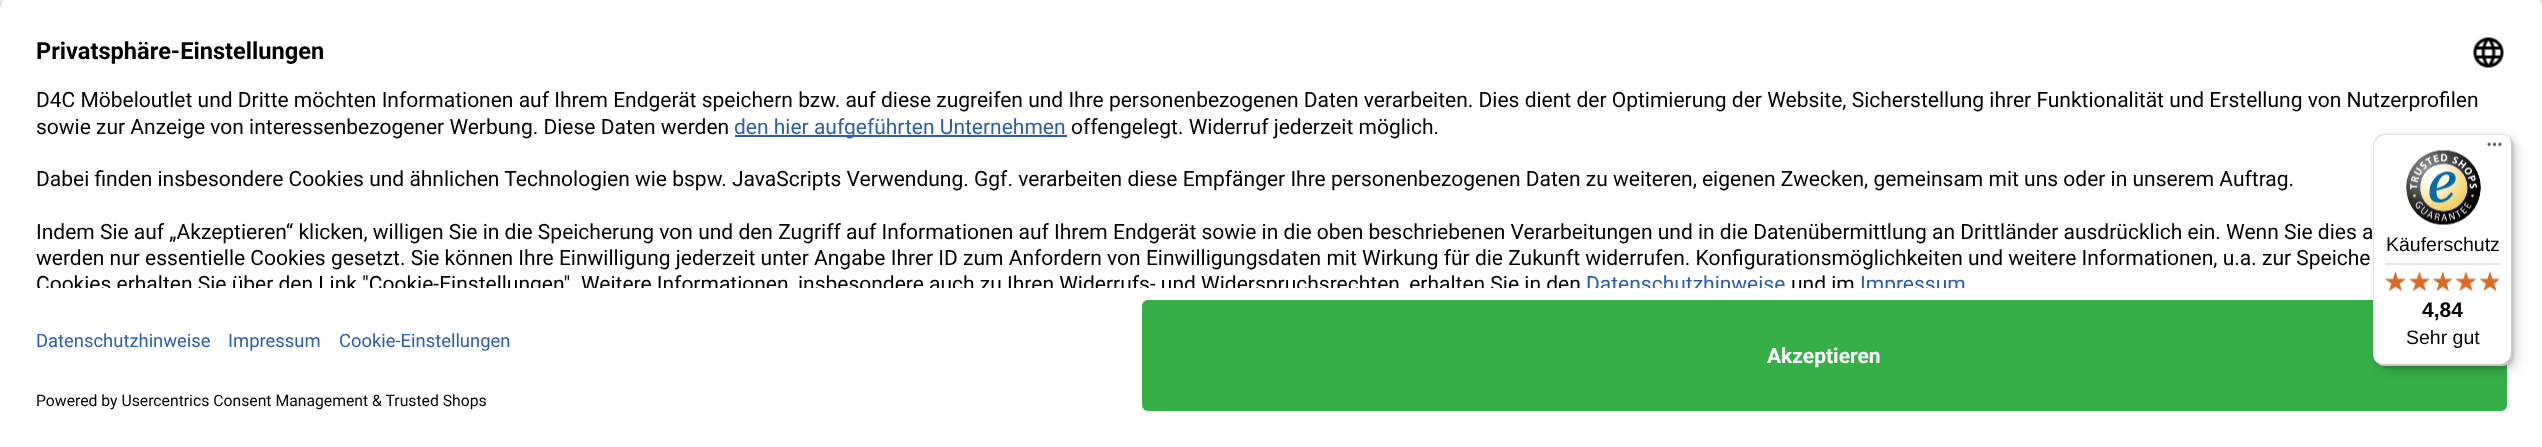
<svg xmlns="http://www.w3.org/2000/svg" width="2542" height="447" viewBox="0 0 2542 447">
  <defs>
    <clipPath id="clip1"><path d="M12-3H2531C2537.5-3 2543 2.5 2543 9V288H0V9C0 2.5 5.5-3 12-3Z"/></clipPath>
  </defs>
  <rect width="100%" height="100%" fill="#fff"/>
  <rect y="2" width="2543" height="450" rx="12" fill="#000000cc" filter="blur(5px)"/>
  <g clip-path="url(#clip1)">
    <path d="M0 0h2542v288H0z" fill="#fff"/>
  </g>
  <image x="2473" y="37" width="31" height="31" href="img/1.png"/>
  <path d="M735 135h332v2H735z" fill="#2a5db0"/>
  <path d="M0 288h2542v159H0z" fill="#fff"/>
  <rect x="1142" y="300" width="1365" height="111" rx="6" fill="#36af47"/>
  <rect x="2378" y="138" width="139" height="233" rx="12" fill="#00000026" filter="blur(6px)"/>
  <rect x="2375" y="135" width="139" height="233" rx="12" fill="#00000026" filter="blur(1.5px)"/>
  <rect x="2373" y="134" width="140" height="232" rx="12" fill="#fff"/>
  <path d="M2386 135H2502C2505 135 2507 136 2509 137C2507 135 2504 134 2501 134H2385C2378 134 2373 139 2373 146V354C2373 357 2374 359 2376 361C2375 360 2374 358 2374 356V147C2374 140 2380 135 2386 135Z" fill="#0000001a"/>
  <path d="M2374 359C2376 363 2380 366 2385 366H2501C2508 366 2513 361 2513 354V146C2513 142 2511 139 2509 137C2510 139 2511 141 2511 144V352C2511 359 2506 364 2499 364H2384C2380 364 2376 362 2374 359Z" fill="#00000033"/>
  <path d="M2377 363C2379 365 2382 366 2385 366H2501C2508 366 2513 361 2513 354V146C2513 142 2511 139 2509 137C2511 139 2512 142 2512 145V353C2512 360 2506 365 2500 365H2384C2381 365 2379 364 2377 363Z" fill="#32323233"/>
  <path d="M2376 362C2378 364 2381 366 2385 366H2501C2508 366 2513 361 2513 354V146C2513 142 2511 139 2509 137C2511 139 2512 142 2512 145V353C2512 360 2506 365 2500 365H2384C2381 365 2378 364 2376 362Z" fill="#ffffff4d"/>
  <image x="2487" y="142" width="15" height="5" href="img/2.png"/>
  <image x="2406" y="150" width="75" height="75" href="img/3.png"/>
  <path d="M2385 263h116v2H2385z" fill="#e5e5e5"/>
  <image x="2385" y="271" width="21" height="20" href="img/4.png"/>
  <image x="2409" y="272" width="21" height="19" href="img/5.png"/>
  <image x="2433" y="271" width="19" height="20" href="img/6.png"/>
  <image x="2456" y="272" width="20" height="19" href="img/7.png"/>
  <image x="2480" y="271" width="20" height="20" href="img/8.png"/>
  <image x="2385" y="271" width="21" height="20" href="img/9.png"/>
  <image x="2409" y="271" width="21" height="20" href="img/10.png"/>
  <image x="2433" y="271" width="19" height="20" href="img/11.png"/>
  <image x="2455" y="271" width="22" height="20" href="img/12.png"/>
  <image x="2480" y="271" width="18" height="20" href="img/13.png"/>
  <text x="36" y="59" font-family="Roboto" font-size="23.6" font-weight="bold" fill="#000">Privatsphäre-Einstellungen</text>
  <g font-family="Roboto" font-size="21" fill="#000">
    <text x="36" y="107">D4C Möbeloutlet und Dritte möchten Informationen auf Ihrem Endgerät speichern bzw. auf diese zugreifen und Ihre personenbezogenen Daten verarbeiten. Dies dient der Optimierung der Website, Sicherstellung ihrer Funktionalität und Erstellung von Nutzerprofilen</text>
    <text x="36" y="134">sowie zur Anzeige von interessenbezogener Werbung. Diese Daten werden</text>
  </g>
  <text x="734" y="134" font-family="Roboto" font-size="21" fill="#2a5db0">den hier aufgeführten Unternehmen</text>
  <g font-family="Roboto" font-size="21" fill="#000">
    <text x="1071" y="134">offengelegt. Widerruf jederzeit möglich.</text>
    <text x="36" y="186">Dabei finden insbesondere Cookies und ähnlichen Technologien wie bspw. JavaScripts Verwendung. Ggf. verarbeiten diese Empfänger Ihre personenbezogenen Daten zu weiteren, eigenen Zwecken, gemeinsam mit uns oder in unserem Auftrag.</text>
    <text x="36" y="239">Indem Sie auf „Akzeptieren“ klicken, willigen Sie in die Speicherung von und den Zugriff auf Informationen auf Ihrem Endgerät sowie in die oben beschriebenen Verarbeitungen und in die Datenübermittlung an Drittländer ausdrücklich ein. Wenn Sie dies a</text>
    <text x="36" y="265">werden nur essentielle Cookies gesetzt. Sie können Ihre Einwilligung jederzeit unter Angabe Ihrer ID zum Anfordern von Einwilligungsdaten mit Wirkung für die Zukunft widerrufen. Konfigurationsmöglichkeiten und weitere Informationen, u.a. zur Speiche</text>
  </g>
  <g clip-path="url(#clip1)">
    <text x="36" y="291" font-family="Roboto" font-size="21" fill="#000">Cookies erhalten Sie über den Link "Cookie-Einstellungen". Weitere Informationen, insbesondere auch zu Ihren Widerrufs- und Widerspruchsrechten, erhalten Sie in den</text>
    <text x="1586" y="291" font-family="Roboto" font-size="21" fill="#2a5db0">Datenschutzhinweise</text>
    <text x="1791" y="291" font-family="Roboto" font-size="21" fill="#000">und im</text>
    <text x="1860" y="291" font-family="Roboto" font-size="21" fill="#2a5db0">Impressum</text>
  </g>
  <g font-family="Roboto" font-size="18.4" fill="#2a5db0">
    <text x="36" y="347">Datenschutzhinweise</text>
    <text x="228" y="347">Impressum</text>
    <text x="339" y="347">Cookie-Einstellungen</text>
  </g>
  <text x="36" y="406" font-family="Roboto" font-size="15.75" fill="#000">Powered by Usercentrics Consent Management &amp; Trusted Shops</text>
  <text x="1767" y="363" font-family="Roboto" font-size="21" font-weight="bold" fill="#fff">Akzeptieren</text>
  <text x="2386" y="251" font-family="Liberation Sans" font-size="19.5" fill="#000">Käuferschutz</text>
  <text x="2422" y="317" font-family="Liberation Sans" font-size="21" font-weight="bold" fill="#000">4,84</text>
  <text x="2406" y="344" font-family="Liberation Sans" font-size="19.5" fill="#000">Sehr gut</text>
</svg>
